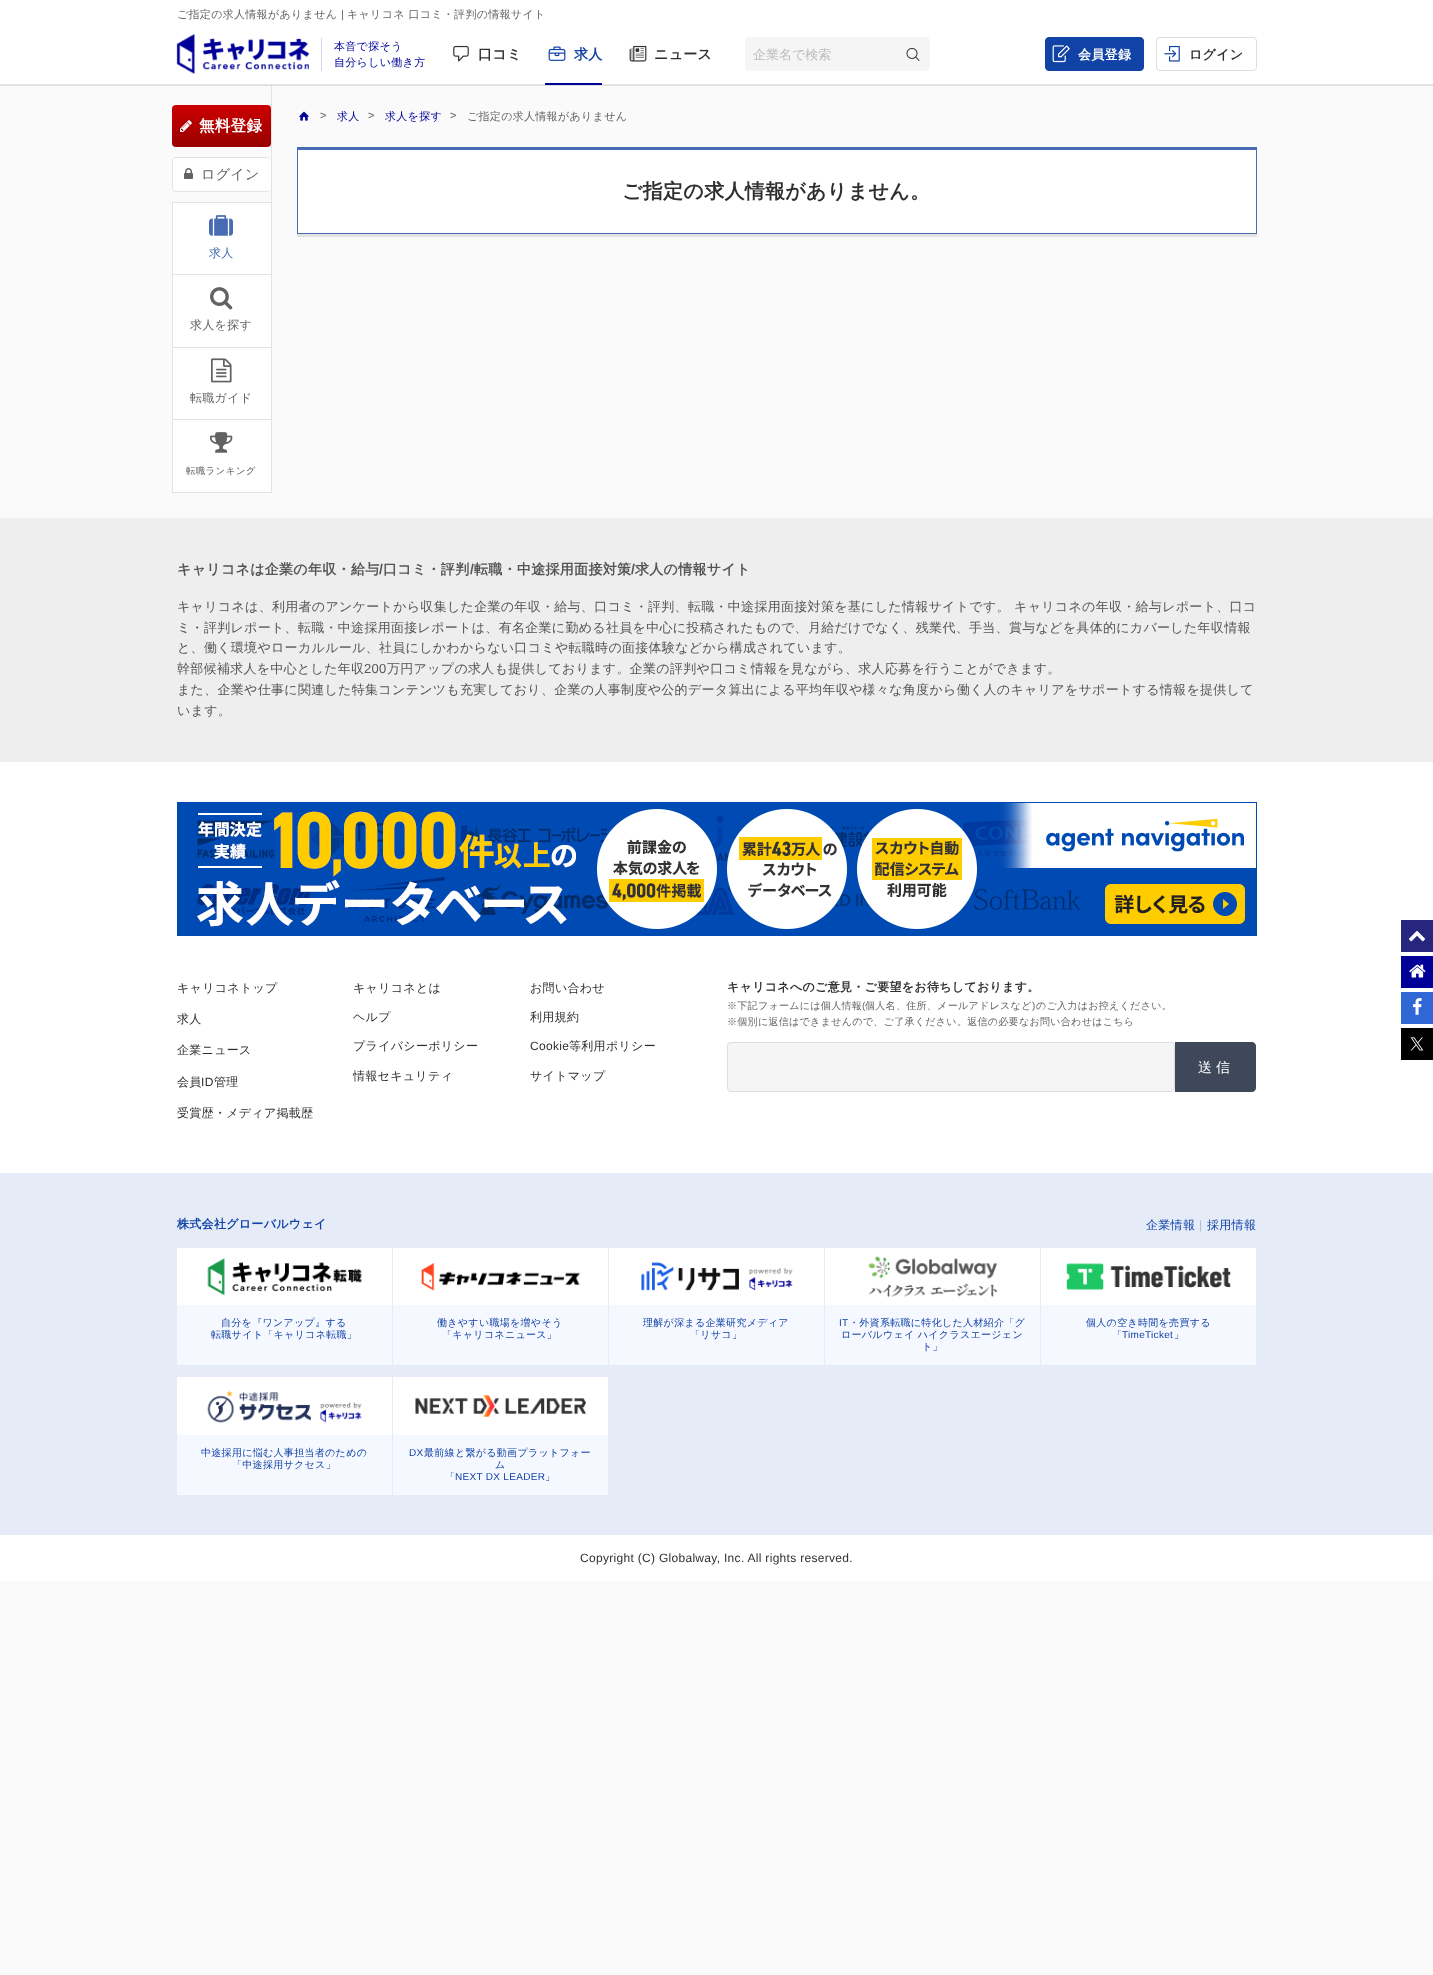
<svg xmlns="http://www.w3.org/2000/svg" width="1433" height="1975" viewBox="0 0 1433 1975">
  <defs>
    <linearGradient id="g1" gradientUnits="userSpaceOnUse" x1="222" y1="105" x2="222" y2="147"><stop offset="0" stop-color="#c00"/><stop offset="1" stop-color="#900"/></linearGradient>
  </defs>
  <rect width="100%" height="100%" fill="#fafafa"/>
  <path d="M0 85h1433v1H0z" fill="#e1e1e1"/>
  <path d="M0 0h1433v84H0z" fill="#fff"/>
  <path d="M0 84h1433v1H0z" fill="#e5e5e5"/>
  <image x="176" y="34" width="133" height="40" href="img/1.png"/>
  <path d="M321 38h1v33H321z" fill="#cfd6e5"/>
  <image x="453" y="45" width="16" height="17" href="img/2.png"/>
  <image x="548" y="46" width="18" height="15" href="img/3.png"/>
  <path d="M545 83h57v2H545z" fill="#009"/>
  <image x="629" y="45" width="18" height="17" href="img/4.png"/>
  <path d="M749 37H905V71H749C747 71 745 69 745 67V41C745 39 747 37 749 37Z" fill="#f5f5f5"/>
  <path d="M905 37H926C928 37 930 39 930 41V67C930 69 928 71 926 71H905Z" fill="#f5f5f5"/>
  <image x="906" y="47" width="14" height="14" href="img/5.png"/>
  <rect x="1045.5" y="37.5" width="98" height="33" rx="3.5" fill="#1142a6" stroke="#1142a6"/>
  <image x="1052" y="45" width="18" height="18" href="img/6.png"/>
  <rect x="1156.5" y="37.5" width="100" height="33" rx="3.5" fill="none" stroke="#ddd"/>
  <image x="1164" y="45" width="16" height="17" href="img/7.png"/>
  <path d="M271 85h1v408H271z" fill="#e3e3e3"/>
  <rect x="172" y="105" width="99" height="42" rx="4" fill="url(#g1)"/>
  <image x="180" y="120" width="12" height="12" href="img/8.png"/>
  <rect x="172" y="157" width="99" height="35" rx="4" fill="#fff"/>
  <path d="M176 157H267C269 157 271 159 271 161V188C271 190 269 192 267 192H176C174 192 172 190 172 188V161C172 159 174 157 176 157ZM176 158H267C269 158 271 159 271 161V188C271 190 269 191 267 191H176C174 191 173 190 173 188V161C173 159 174 158 176 158Z" fill="#e3e3e3" fill-rule="evenodd"/>
  <image x="184" y="168" width="9" height="11" href="img/9.png"/>
  <path d="M172 202h99v1H172z" fill="#e3e3e3"/>
  <path d="M172 202h1v291H172z" fill="#e3e3e3"/>
  <path d="M173 203h98v71H173z" fill="#fff"/>
  <path d="M173 274h98v1H173z" fill="#e3e3e3"/>
  <image x="209" y="215" width="24" height="21" href="img/10.png"/>
  <path d="M173 275h98v72H173z" fill="#fff"/>
  <path d="M173 347h98v1H173z" fill="#e3e3e3"/>
  <image x="210" y="287" width="23" height="23" href="img/11.png"/>
  <path d="M173 348h98v71H173z" fill="#fff"/>
  <path d="M173 419h98v1H173z" fill="#e3e3e3"/>
  <image x="211" y="358" width="21" height="25" href="img/12.png"/>
  <path d="M173 420h98v72H173z" fill="#fff"/>
  <path d="M173 492h98v1H173z" fill="#e3e3e3"/>
  <image x="210" y="432" width="23" height="21" href="img/13.png"/>
  <path d="M271 85h1v1H271z" fill="#ccc"/>
  <image x="299" y="111" width="10" height="10" href="img/14.png"/>
  <path d="M297 234h960v3H297z" fill="#e3e3e3"/>
  <path d="M298 150h958v83H298z" fill="#fff"/>
  <path d="M297 147h960v3H297z" fill="#486cb3"/>
  <path d="M1256 147h1v87H1256z" fill="#486cb3"/>
  <path d="M297 233h960v1H297z" fill="#486cb3"/>
  <path d="M297 147h1v87H297z" fill="#486cb3"/>
  <path d="M0 518h1433v244H0z" fill="#eee"/>
  <path d="M0 762h1433v411H0z" fill="#fff"/>
  <image x="177" y="802" width="1080" height="134" href="img/15.png"/>
  <rect x="727.5" y="1042.5" width="447" height="49" rx="3.5" fill="#f5f5f5" stroke="#ddd"/>
  <path d="M1175 1042H1252C1254 1042 1256 1044 1256 1046V1088C1256 1090 1254 1092 1252 1092H1175Z" fill="#3f485a"/>
  <path d="M0 1173h1433v362H0z" fill="#e6ecf7"/>
  <path d="M177 1305h215v60H177z" fill="#f5f8ff"/>
  <image x="177" y="1248" width="215" height="57" href="img/16.png"/>
  <path d="M393 1305h215v60H393z" fill="#f5f8ff"/>
  <image x="393" y="1248" width="215" height="57" href="img/17.png"/>
  <path d="M609 1305h215v60H609z" fill="#f5f8ff"/>
  <image x="609" y="1248" width="215" height="57" href="img/18.png"/>
  <path d="M825 1305h215v60H825z" fill="#f5f8ff"/>
  <image x="825" y="1248" width="215" height="57" href="img/19.png"/>
  <path d="M1041 1305h215v60H1041z" fill="#f5f8ff"/>
  <image x="1041" y="1248" width="215" height="57" href="img/20.png"/>
  <path d="M177 1435h215v60H177z" fill="#f5f8ff"/>
  <image x="177" y="1377" width="215" height="58" href="img/21.png"/>
  <path d="M393 1435h215v60H393z" fill="#f5f8ff"/>
  <image x="393" y="1377" width="215" height="58" href="img/22.png"/>
  <path d="M0 1535h1433v46H0z" fill="#fff"/>
  <path d="M1401 920h32v32H1401z" fill="#26267f"/>
  <image x="1409" y="931" width="16" height="11" href="img/23.png"/>
  <path d="M1401 956h32v32H1401z" fill="#009"/>
  <image x="1409" y="964" width="17" height="14" href="img/24.png"/>
  <path d="M1401 992h32v32H1401z" fill="#3067d7"/>
  <image x="1412" y="998" width="10" height="17" href="img/25.png"/>
  <path d="M1401 1028h32v32H1401z" fill="#000"/>
  <image x="1410" y="1037" width="14" height="14" href="img/26.png"/>
  <text x="177" y="18" font-family="WenQuanYi Zen Hei" font-size="11" font-weight="500" letter-spacing="0.3" fill="#626262">ご指定の求人情報がありません</text>
  <text x="341" y="18" font-family="Liberation Sans" font-size="11" letter-spacing="0.3" fill="#626262">|</text>
  <text x="347" y="18" font-family="WenQuanYi Zen Hei" font-size="11" font-weight="500" letter-spacing="0.3" fill="#626262">キャリコネ 口コミ・評判の情報サイト</text>
  <g font-family="WenQuanYi Zen Hei" font-size="11" font-weight="500" letter-spacing="0.3" fill="#009">
    <text x="334" y="50">本音で探そう</text>
    <text x="334" y="66">自分らしい働き方</text>
  </g>
  <text x="478" y="59" font-family="WenQuanYi Zen Hei" font-size="14" font-weight="bold" letter-spacing="0.3" fill="#2f2f2f">口コミ</text>
  <text x="574" y="59" font-family="WenQuanYi Zen Hei" font-size="14" font-weight="bold" letter-spacing="0.3" fill="#1142a6">求人</text>
  <text x="654" y="59" font-family="WenQuanYi Zen Hei" font-size="14" font-weight="bold" letter-spacing="0.3" fill="#2f2f2f">ニュース</text>
  <text x="753" y="59" font-family="WenQuanYi Zen Hei" font-size="13" font-weight="500" fill="#bbb">企業名で検索</text>
  <text x="1078" y="59" font-family="WenQuanYi Zen Hei" font-size="13" font-weight="bold" letter-spacing="0.3" fill="#fff">会員登録</text>
  <text x="1189" y="59" font-family="WenQuanYi Zen Hei" font-size="13" font-weight="bold" letter-spacing="0.3" fill="#2f2f2f">ログイン</text>
  <text x="199" y="131" font-family="WenQuanYi Zen Hei" font-size="15.5" font-weight="bold" letter-spacing="0.3" fill="#fff">無料登録</text>
  <text x="201" y="179" font-family="WenQuanYi Zen Hei" font-size="14" font-weight="500" letter-spacing="0.3" fill="#626262">ログイン</text>
  <text x="209" y="257" font-family="WenQuanYi Zen Hei" font-size="12" font-weight="500" letter-spacing="0.3" fill="#486cb3">求人</text>
  <g font-family="WenQuanYi Zen Hei" font-size="12" font-weight="500" letter-spacing="0.3" fill="#626262">
    <text x="190" y="329">求人を探す</text>
    <text x="190" y="402">転職ガイド</text>
  </g>
  <text x="186" y="474" font-family="WenQuanYi Zen Hei" font-size="9.5" font-weight="500" letter-spacing="0.3" fill="#626262">転職ランキング</text>
  <text x="320" y="119" font-family="Liberation Sans" font-size="11" letter-spacing="0.3" fill="#626262">&gt;</text>
  <text x="337" y="120" font-family="WenQuanYi Zen Hei" font-size="11" font-weight="500" letter-spacing="0.3" fill="#009">求人</text>
  <text x="368" y="119" font-family="Liberation Sans" font-size="11" letter-spacing="0.3" fill="#626262">&gt;</text>
  <text x="385" y="120" font-family="WenQuanYi Zen Hei" font-size="11" font-weight="500" letter-spacing="0.3" fill="#009">求人を探す</text>
  <text x="450" y="119" font-family="Liberation Sans" font-size="11" letter-spacing="0.3" fill="#626262">&gt;</text>
  <text x="467" y="120" font-family="WenQuanYi Zen Hei" font-size="11" font-weight="500" letter-spacing="0.3" fill="#626262">ご指定の求人情報がありません</text>
  <text x="622" y="198" font-family="WenQuanYi Zen Hei" font-size="20" font-weight="bold" letter-spacing="0.3" fill="#2f2f2f">ご指定の求人情報がありません。</text>
  <text x="177" y="574" font-family="WenQuanYi Zen Hei" font-size="14" font-weight="bold" letter-spacing="0.3" fill="#555">キャリコネは企業の年収・給与</text>
  <text x="379" y="574" font-family="Liberation Sans" font-size="14" font-weight="bold" letter-spacing="0.3" fill="#555">/</text>
  <text x="383" y="574" font-family="WenQuanYi Zen Hei" font-size="14" font-weight="bold" letter-spacing="0.3" fill="#555">口コミ・評判</text>
  <text x="470" y="574" font-family="Liberation Sans" font-size="14" font-weight="bold" letter-spacing="0.3" fill="#555">/</text>
  <text x="474" y="574" font-family="WenQuanYi Zen Hei" font-size="14" font-weight="bold" letter-spacing="0.3" fill="#555">転職・中途採用面接対策</text>
  <text x="631" y="574" font-family="Liberation Sans" font-size="14" font-weight="bold" letter-spacing="0.3" fill="#555">/</text>
  <text x="635" y="574" font-family="WenQuanYi Zen Hei" font-size="14" font-weight="bold" letter-spacing="0.3" fill="#555">求人の情報サイト</text>
  <g font-family="WenQuanYi Zen Hei" font-size="13" font-weight="500" letter-spacing="0.3" fill="#555">
    <text x="177" y="611">キャリコネは、利用者のアンケートから収集した企業の年収・給与、口コミ・評判、転職・中途採用面接対策を基にした情報サイトです。 キャリコネの年収・給与レポート、口コ</text>
    <text x="177" y="632">ミ・評判レポート、転職・中途採用面接レポートは、有名企業に勤める社員を中心に投稿されたもので、月給だけでなく、残業代、手当、賞与などを具体的にカバーした年収情報</text>
    <text x="177" y="652">と、働く環境やローカルルール、社員にしかわからない口コミや転職時の面接体験などから構成されています。</text>
    <text x="177" y="673">幹部候補求人を中心とした年収</text>
  </g>
  <text x="364" y="673" font-family="Liberation Sans" font-size="13" letter-spacing="0.3" fill="#555">200</text>
  <g font-family="WenQuanYi Zen Hei" font-size="13" font-weight="500" letter-spacing="0.3" fill="#555">
    <text x="387" y="673">万円アップの求人も提供しております。企業の評判や口コミ情報を見ながら、求人応募を行うことができます。</text>
    <text x="177" y="694">また、企業や仕事に関連した特集コンテンツも充実しており、企業の人事制度や公的データ算出による平均年収や様々な角度から働く人のキャリアをサポートする情報を提供して</text>
    <text x="177" y="715">います。</text>
  </g>
  <g font-family="WenQuanYi Zen Hei" font-size="12" font-weight="500" letter-spacing="0.3" fill="#2f2f2f">
    <text x="177" y="992">キャリコネトップ</text>
    <text x="177" y="1023">求人</text>
    <text x="177" y="1054">企業ニュース</text>
    <text x="177" y="1086">会員</text>
  </g>
  <text x="201" y="1086" font-family="Liberation Sans" font-size="12" letter-spacing="0.3" fill="#2f2f2f">ID</text>
  <g font-family="WenQuanYi Zen Hei" font-size="12" font-weight="500" letter-spacing="0.3" fill="#2f2f2f">
    <text x="214" y="1086">管理</text>
    <text x="177" y="1117">受賞歴・メディア掲載歴</text>
    <text x="353" y="992">キャリコネとは</text>
    <text x="530" y="992">お問い合わせ</text>
    <text x="353" y="1021">ヘルプ</text>
    <text x="530" y="1021">利用規約</text>
    <text x="353" y="1050">プライバシーポリシー</text>
  </g>
  <text x="530" y="1050" font-family="Liberation Sans" font-size="12" letter-spacing="0.3" fill="#2f2f2f">Cookie</text>
  <g font-family="WenQuanYi Zen Hei" font-size="12" font-weight="500" letter-spacing="0.3" fill="#2f2f2f">
    <text x="569" y="1050">等利用ポリシー</text>
    <text x="353" y="1080">情報セキュリティ</text>
    <text x="530" y="1080">サイトマップ</text>
  </g>
  <text x="727" y="991" font-family="WenQuanYi Zen Hei" font-size="12" font-weight="bold" letter-spacing="0.3" fill="#2f2f2f">キャリコネへのご意見・ご要望をお待ちしております。</text>
  <text x="727" y="1009" font-family="WenQuanYi Zen Hei" font-size="10" font-weight="500" letter-spacing="0.3" fill="#626262">※下記フォームには個人情報</text>
  <text x="862" y="1009" font-family="Liberation Sans" font-size="10" letter-spacing="0.3" fill="#626262">(</text>
  <text x="865" y="1009" font-family="WenQuanYi Zen Hei" font-size="10" font-weight="500" letter-spacing="0.3" fill="#626262">個人名、住所、メールアドレスなど</text>
  <text x="1032" y="1009" font-family="Liberation Sans" font-size="10" letter-spacing="0.3" fill="#626262">)</text>
  <g font-family="WenQuanYi Zen Hei" font-size="10" font-weight="500" letter-spacing="0.3" fill="#626262">
    <text x="1036" y="1009">のご入力はお控えください。</text>
    <text x="727" y="1025">※個別に返信はできませんので、ご了承ください。返信の必要なお問い合わせはこちら</text>
  </g>
  <text x="1198" y="1072" font-family="WenQuanYi Zen Hei" font-size="14" font-weight="500" letter-spacing="4" fill="#fff">送信</text>
  <text x="177" y="1228" font-family="WenQuanYi Zen Hei" font-size="12" font-weight="bold" letter-spacing="0.3" fill="#1142a6">株式会社グローバルウェイ</text>
  <text x="1146" y="1229" font-family="WenQuanYi Zen Hei" font-size="12" font-weight="500" letter-spacing="0.3" fill="#1142a6">企業情報</text>
  <text x="1199" y="1229" font-family="Liberation Sans" font-size="12" letter-spacing="0.3" fill="#aebdda">|</text>
  <text x="1207" y="1229" font-family="WenQuanYi Zen Hei" font-size="12" font-weight="500" letter-spacing="0.3" fill="#1142a6">採用情報</text>
  <g font-family="WenQuanYi Zen Hei" font-size="10" font-weight="500" letter-spacing="0.3" fill="#1142a6">
    <text x="221" y="1326">自分を『ワンアップ』する</text>
    <text x="211" y="1338">転職サイト「キャリコネ転職」</text>
    <text x="437" y="1326">働きやすい職場を増やそう</text>
    <text x="442" y="1338">「キャリコネニュース」</text>
    <text x="643" y="1326">理解が深まる企業研究メディア</text>
    <text x="690" y="1338">「リサコ」</text>
  </g>
  <text x="839" y="1326" font-family="Liberation Sans" font-size="10" letter-spacing="0.3" fill="#1142a6">IT</text>
  <g font-family="WenQuanYi Zen Hei" font-size="10" font-weight="500" letter-spacing="0.3" fill="#1142a6">
    <text x="849" y="1326">・外資系転職に特化した人材紹介「グ</text>
    <text x="841" y="1338">ローバルウェイ ハイクラスエージェン</text>
    <text x="922" y="1350">ト」</text>
    <text x="1086" y="1326">個人の空き時間を売買する</text>
    <text x="1112" y="1338">「</text>
  </g>
  <text x="1122" y="1338" font-family="Liberation Sans" font-size="10" letter-spacing="0.3" fill="#1142a6">TimeTicket</text>
  <g font-family="WenQuanYi Zen Hei" font-size="10" font-weight="500" letter-spacing="0.3" fill="#1142a6">
    <text x="1174" y="1338">」</text>
    <text x="201" y="1456">中途採用に悩む人事担当者のための</text>
    <text x="232" y="1468">「中途採用サクセス」</text>
  </g>
  <text x="409" y="1456" font-family="Liberation Sans" font-size="10" letter-spacing="0.3" fill="#1142a6">DX</text>
  <g font-family="WenQuanYi Zen Hei" font-size="10" font-weight="500" letter-spacing="0.3" fill="#1142a6">
    <text x="424" y="1456">最前線と繋がる動画プラットフォー</text>
    <text x="495" y="1468">ム</text>
    <text x="445" y="1480">「</text>
  </g>
  <text x="455" y="1480" font-family="Liberation Sans" font-size="10" letter-spacing="0.3" fill="#1142a6">NEXT DX LEADER</text>
  <text x="545" y="1480" font-family="WenQuanYi Zen Hei" font-size="10" font-weight="500" letter-spacing="0.3" fill="#1142a6">」</text>
  <text x="580" y="1562" font-family="Liberation Sans" font-size="12" letter-spacing="0.3" fill="#2f2f2f">Copyright (C) Globalway, Inc. All rights reserved.</text>
</svg>
